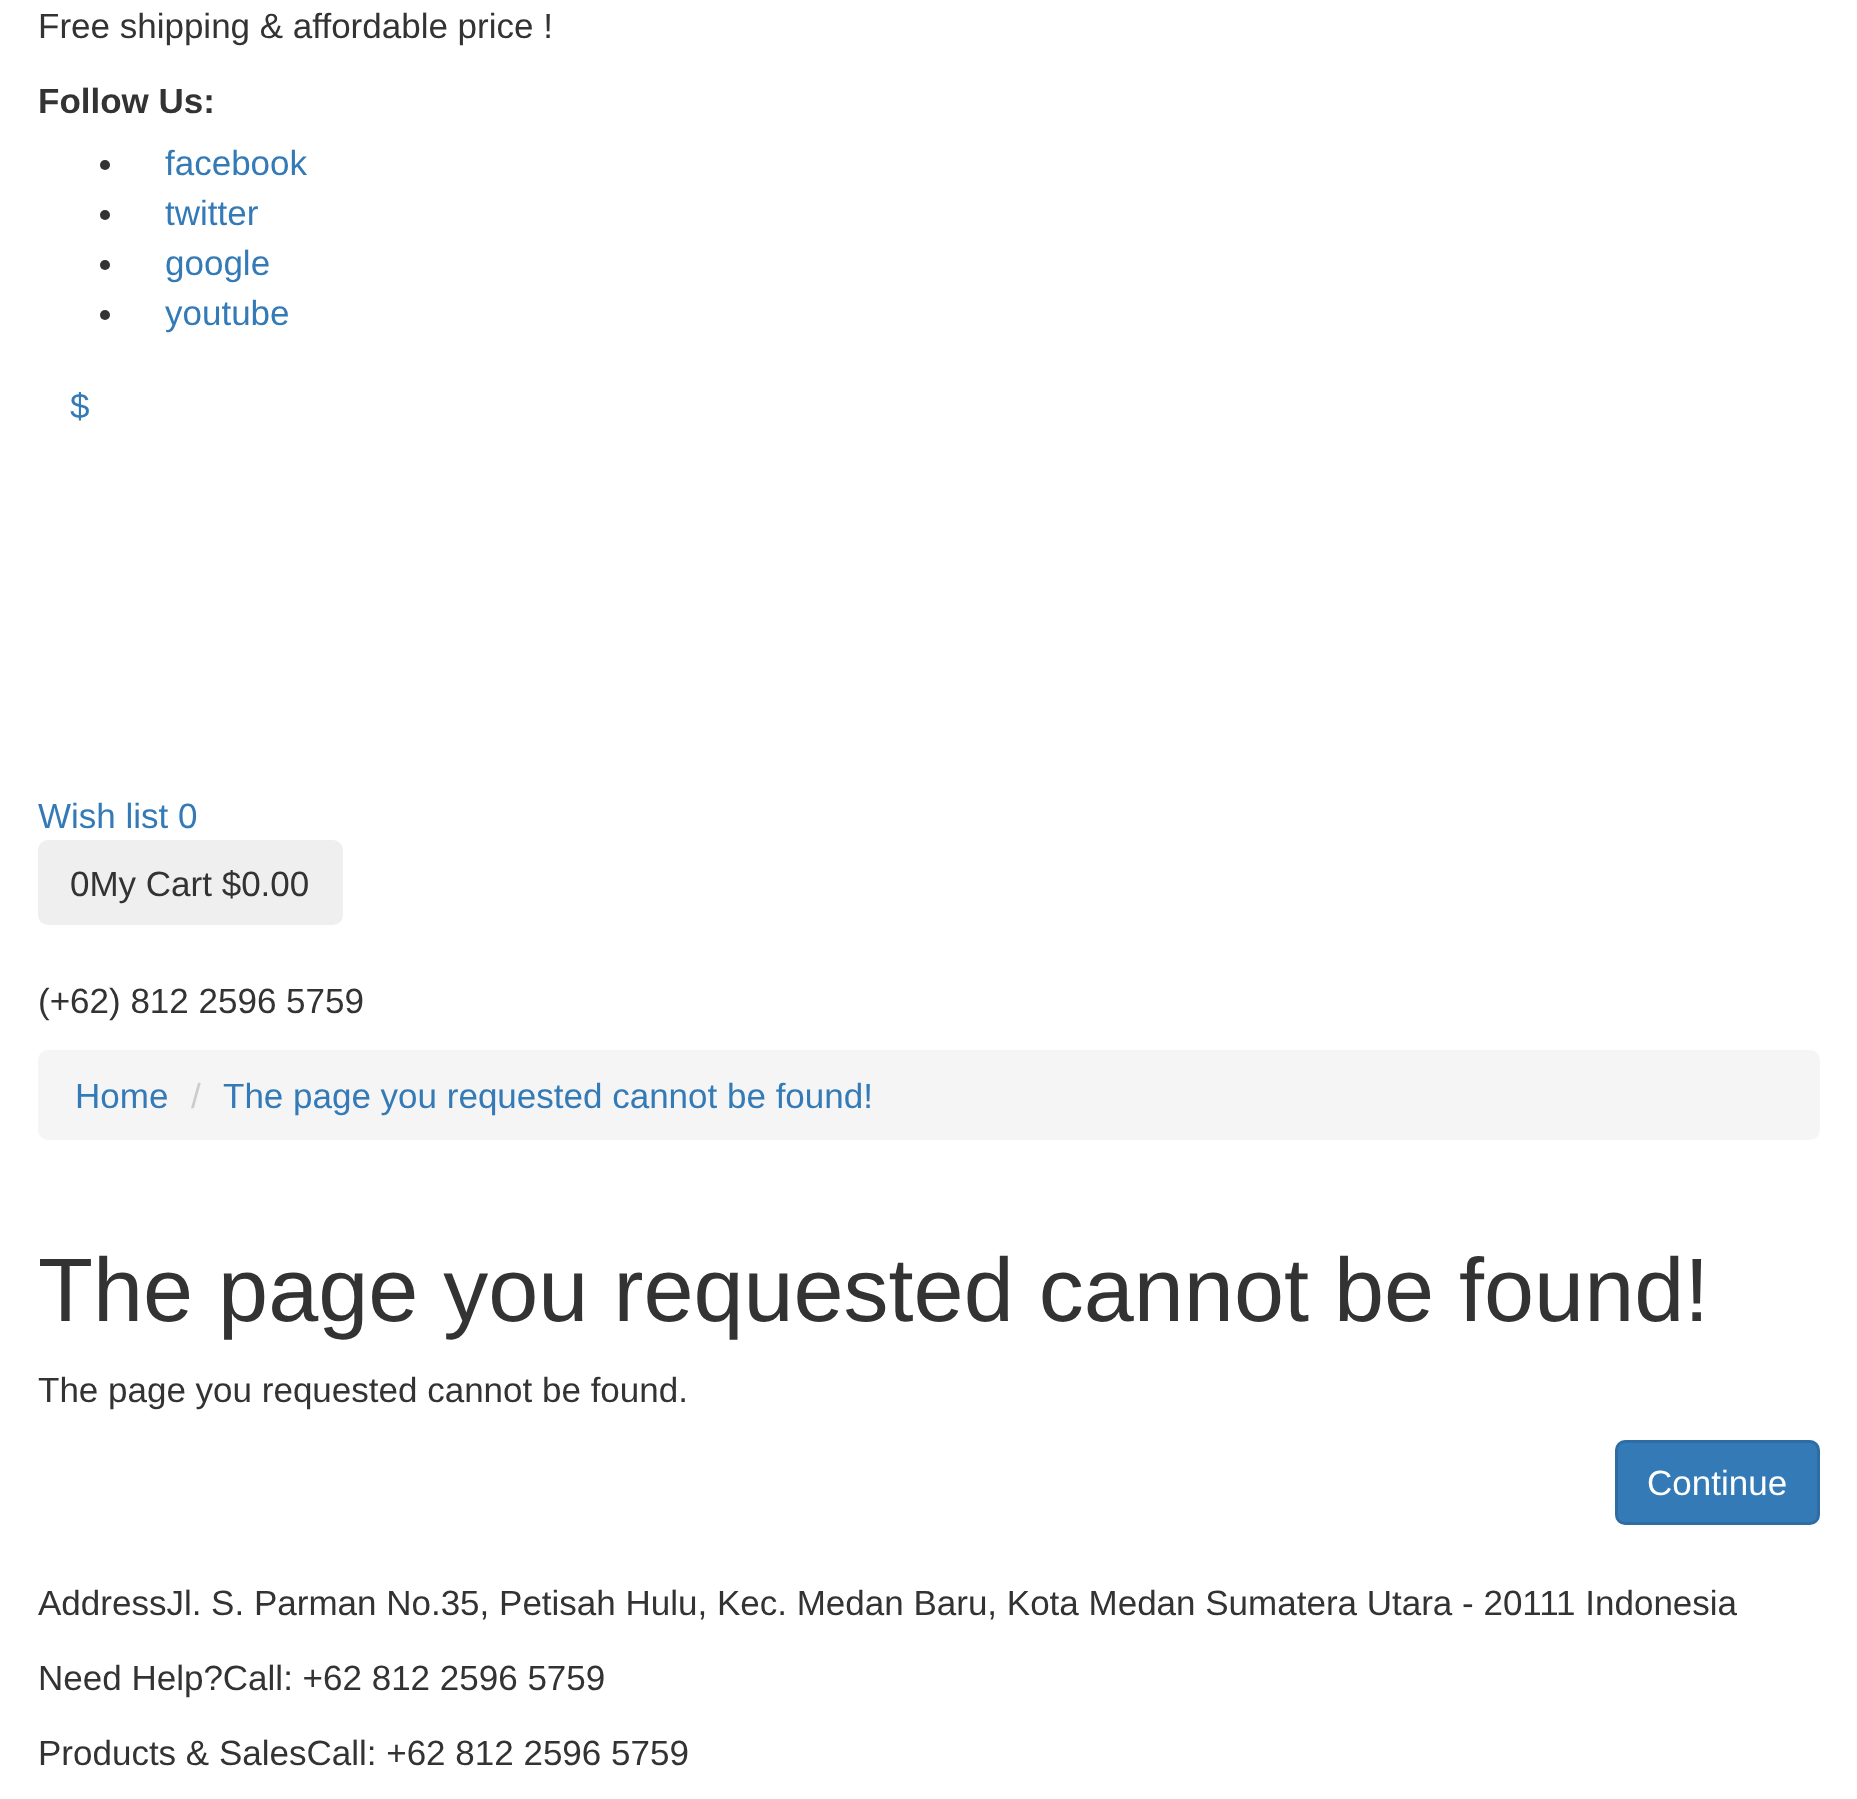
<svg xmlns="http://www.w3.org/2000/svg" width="1857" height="1799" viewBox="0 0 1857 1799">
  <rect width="100%" height="100%" fill="#fff"/>
  <circle cx="105" cy="165" r="5" fill="#333"/>
  <circle cx="105" cy="215" r="5" fill="#333"/>
  <circle cx="105" cy="265" r="5" fill="#333"/>
  <circle cx="105" cy="315" r="5" fill="#333"/>
  <rect x="38" y="840" width="305" height="85" rx="10" fill="#efefef"/>
  <rect x="38" y="1050" width="1782" height="90" rx="10" fill="#f5f5f5"/>
  <rect x="1616.5" y="1441.5" width="202" height="82" rx="8.5" fill="#337ab7" stroke="#2e6da4" stroke-width="3"/>
  <text x="38" y="38" font-family="Liberation Sans" font-size="35" fill="#333">Free shipping &amp; affordable price !</text>
  <text x="38" y="113" font-family="Liberation Sans" font-size="35" font-weight="bold" fill="#333">Follow Us:</text>
  <g font-family="Liberation Sans" font-size="35" fill="#337ab7">
    <text x="165" y="175">facebook</text>
    <text x="165" y="225">twitter</text>
    <text x="165" y="275">google</text>
    <text x="165" y="325">youtube</text>
    <text x="70" y="418">$</text>
    <text x="38" y="828">Wish list 0</text>
  </g>
  <g font-family="Liberation Sans" font-size="35" fill="#333">
    <text x="70" y="896">0My Cart $0.00</text>
    <text x="38" y="1013">(+62) 812 2596 5759</text>
  </g>
  <text x="75" y="1108" font-family="Liberation Sans" font-size="35" fill="#337ab7">Home</text>
  <text x="191" y="1108" font-family="Liberation Sans" font-size="35" fill="#ccc">/</text>
  <text x="223" y="1108" font-family="Liberation Sans" font-size="35" fill="#337ab7">The page you requested cannot be found!</text>
  <text x="38" y="1321" font-family="Liberation Sans" font-size="90" fill="#333">The page you requested cannot be found!</text>
  <text x="38" y="1402" font-family="Liberation Sans" font-size="35" fill="#333">The page you requested cannot be found.</text>
  <text x="1647" y="1495" font-family="Liberation Sans" font-size="35" fill="#fff">Continue</text>
  <g font-family="Liberation Sans" font-size="35" fill="#333">
    <text x="38" y="1615">AddressJl. S. Parman No.35, Petisah Hulu, Kec. Medan Baru, Kota Medan Sumatera Utara - 20111 Indonesia</text>
    <text x="38" y="1690">Need Help?Call: +62 812 2596 5759</text>
    <text x="38" y="1765">Products &amp; SalesCall: +62 812 2596 5759</text>
  </g>
</svg>
